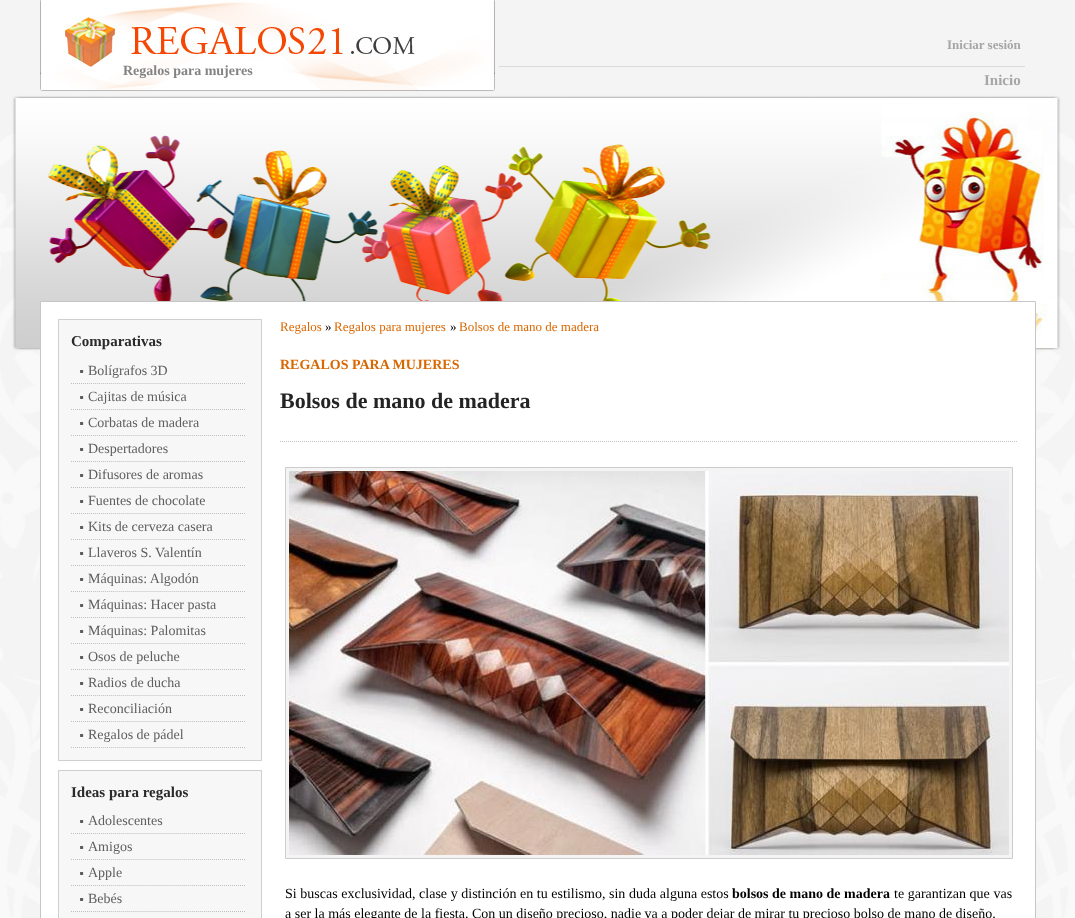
<svg xmlns="http://www.w3.org/2000/svg" width="1075" height="918" viewBox="0 0 1075 918">
  <rect width="100%" height="100%" fill="#f4f4f4"/>
  <image x="0" y="66" width="1075" height="852" href="img/1.png"/>
  <image x="40" y="0" width="455" height="91" href="img/2.png"/>
  <path d="M40.5 301.5h995v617H40.5z" fill="#fff" stroke="#c6c6c6"/>
  <path d="M58.5 319.5h203v441H58.5z" fill="#f7f7f7" stroke="#cfcfcf"/>
  <image x="71" y="370" width="174" height="14" href="img/3.png"/>
  <image x="71" y="396" width="174" height="14" href="img/3.png"/>
  <image x="71" y="422" width="174" height="14" href="img/3.png"/>
  <image x="71" y="448" width="174" height="14" href="img/3.png"/>
  <image x="71" y="474" width="174" height="14" href="img/3.png"/>
  <image x="71" y="500" width="174" height="14" href="img/3.png"/>
  <image x="71" y="526" width="174" height="14" href="img/3.png"/>
  <image x="71" y="552" width="174" height="14" href="img/3.png"/>
  <image x="71" y="578" width="174" height="14" href="img/3.png"/>
  <image x="71" y="604" width="174" height="14" href="img/3.png"/>
  <image x="71" y="630" width="174" height="14" href="img/3.png"/>
  <image x="71" y="656" width="174" height="14" href="img/3.png"/>
  <image x="71" y="682" width="174" height="14" href="img/3.png"/>
  <image x="71" y="708" width="174" height="14" href="img/3.png"/>
  <image x="71" y="734" width="174" height="14" href="img/3.png"/>
  <path d="M58.5 770.5h203v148H58.5z" fill="#f7f7f7" stroke="#cfcfcf"/>
  <image x="71" y="820" width="174" height="14" href="img/3.png"/>
  <image x="71" y="846" width="174" height="14" href="img/3.png"/>
  <image x="71" y="872" width="174" height="14" href="img/3.png"/>
  <image x="71" y="898" width="174" height="14" href="img/3.png"/>
  <image x="280" y="441" width="737" height="1" href="img/4.png"/>
  <path d="M285.5 467.5h727v391H285.5z" fill="#f4f4f4" stroke="#ccc"/>
  <image x="289" y="471" width="720" height="384" href="img/5.png"/>
  <text x="123" y="75" font-family="Liberation Serif" font-size="14" font-weight="bold" fill="#848383">Regalos para mujeres</text>
  <text x="947" y="49" font-family="Liberation Serif" font-size="13" font-weight="bold" fill="#a6a6a6">Iniciar sesión</text>
  <text x="984" y="85" font-family="Liberation Serif" font-size="15" font-weight="bold" fill="#a6a6a6">Inicio</text>
  <text x="71" y="346" font-family="Liberation Serif" font-size="15" font-weight="bold" fill="#2a2a2a">Comparativas</text>
  <g font-family="Liberation Serif" font-size="14" fill="#5e5e5e">
    <text x="88" y="375">Bolígrafos 3D</text>
    <text x="88" y="401">Cajitas de música</text>
    <text x="88" y="427">Corbatas de madera</text>
    <text x="88" y="453">Despertadores</text>
    <text x="88" y="479">Difusores de aromas</text>
    <text x="88" y="505">Fuentes de chocolate</text>
    <text x="88" y="531">Kits de cerveza casera</text>
    <text x="88" y="557">Llaveros S. Valentín</text>
    <text x="88" y="583">Máquinas: Algodón</text>
    <text x="88" y="609">Máquinas: Hacer pasta</text>
    <text x="88" y="635">Máquinas: Palomitas</text>
    <text x="88" y="661">Osos de peluche</text>
    <text x="88" y="687">Radios de ducha</text>
    <text x="88" y="713">Reconciliación</text>
    <text x="88" y="739">Regalos de pádel</text>
  </g>
  <text x="71" y="797" font-family="Liberation Serif" font-size="15" font-weight="bold" fill="#2a2a2a">Ideas para regalos</text>
  <g font-family="Liberation Serif" font-size="14" fill="#5e5e5e">
    <text x="88" y="825">Adolescentes</text>
    <text x="88" y="851">Amigos</text>
    <text x="88" y="877">Apple</text>
    <text x="88" y="903">Bebés</text>
  </g>
  <text x="280" y="331" font-family="Liberation Serif" font-size="13" fill="#d96803">Regalos</text>
  <text x="325" y="331" font-family="Liberation Serif" font-size="13" fill="#000">»</text>
  <text x="334" y="331" font-family="Liberation Serif" font-size="13" fill="#d96803">Regalos para mujeres</text>
  <text x="450" y="331" font-family="Liberation Serif" font-size="13" fill="#000">»</text>
  <text x="459" y="331" font-family="Liberation Serif" font-size="13" fill="#d96803">Bolsos de mano de madera</text>
  <text x="280" y="369" font-family="Liberation Serif" font-size="14" font-weight="bold" fill="#d96803">REGALOS PARA MUJERES</text>
  <text x="280" y="408" font-family="Liberation Serif" font-size="22" font-weight="bold" fill="#242424">Bolsos de mano de madera</text>
  <text x="285" y="898" word-spacing="0.1" font-family="Liberation Serif" font-size="14" fill="#000">Si buscas exclusividad, clase y distinción en tu estilismo, sin duda alguna estos</text>
  <text x="732" y="898" font-family="Liberation Serif" font-size="14" font-weight="bold" fill="#000">bolsos de mano de madera</text>
  <g font-family="Liberation Serif" font-size="14" fill="#000">
    <text x="894" y="898" word-spacing="0.1">te garantizan que vas</text>
    <text x="285" y="918">a ser la más elegante de la fiesta. Con un diseño precioso, nadie va a poder dejar de mirar tu precioso bolso de mano de diseño.</text>
  </g>
</svg>
